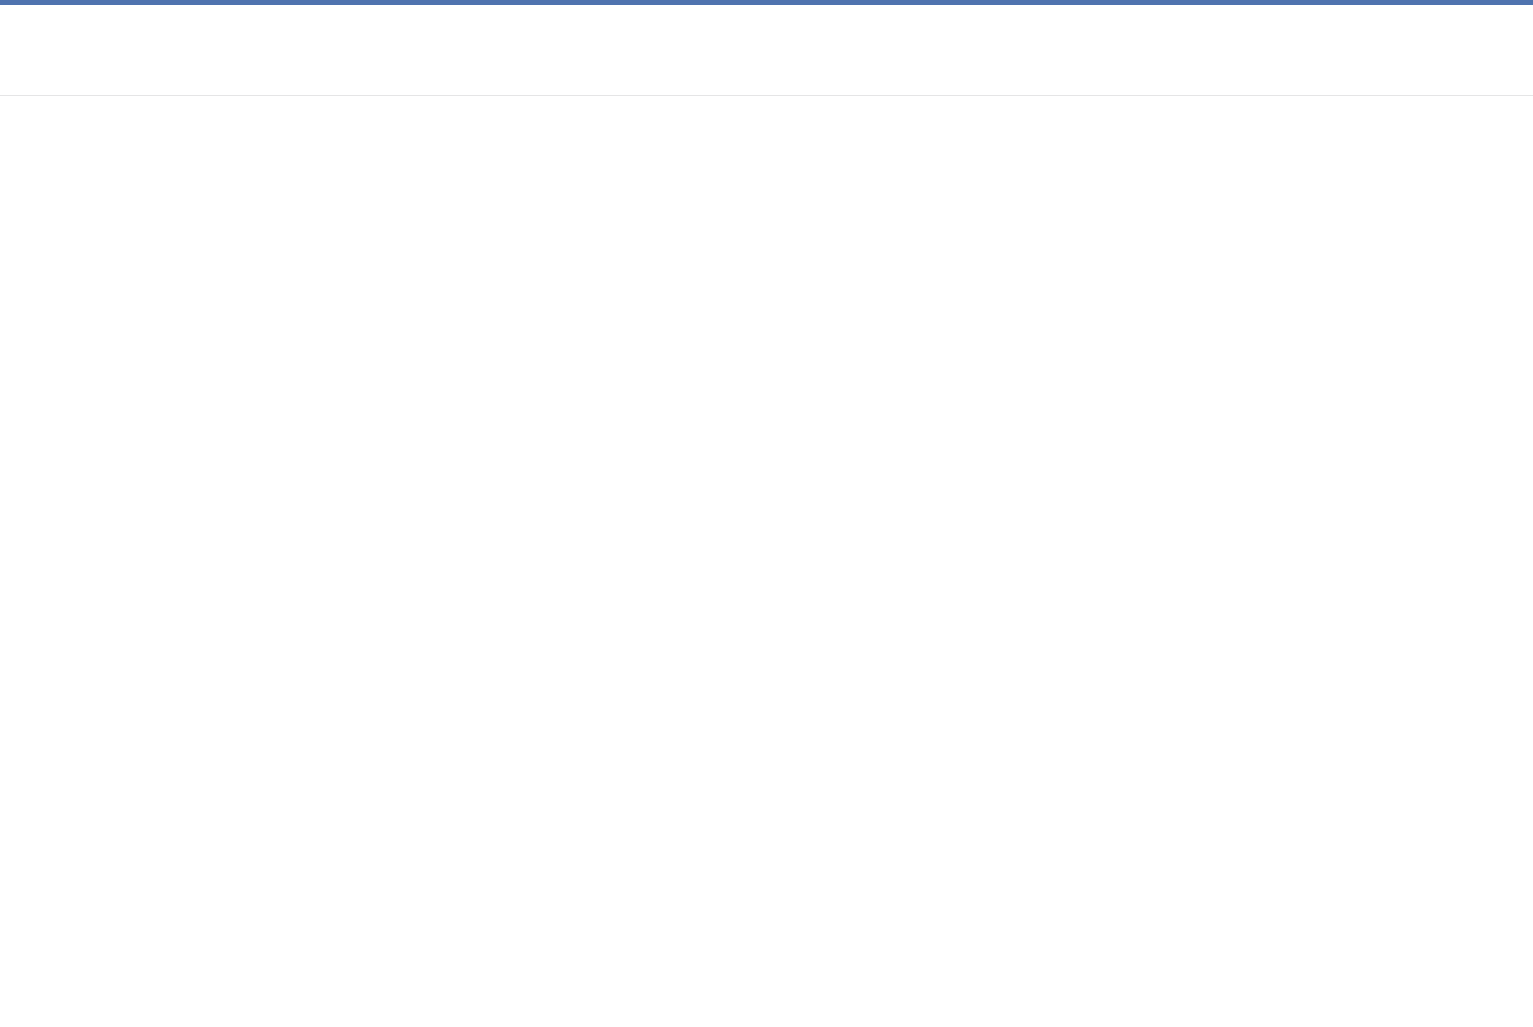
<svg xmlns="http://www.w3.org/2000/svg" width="1533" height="1027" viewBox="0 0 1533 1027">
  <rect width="100%" height="100%" fill="#fff"/>
  <path d="M0 95h1533v1H0z" fill="#e5e5e6"/>
  <path d="M0 0h1533v5H0z" fill="#4f73af"/>
</svg>
